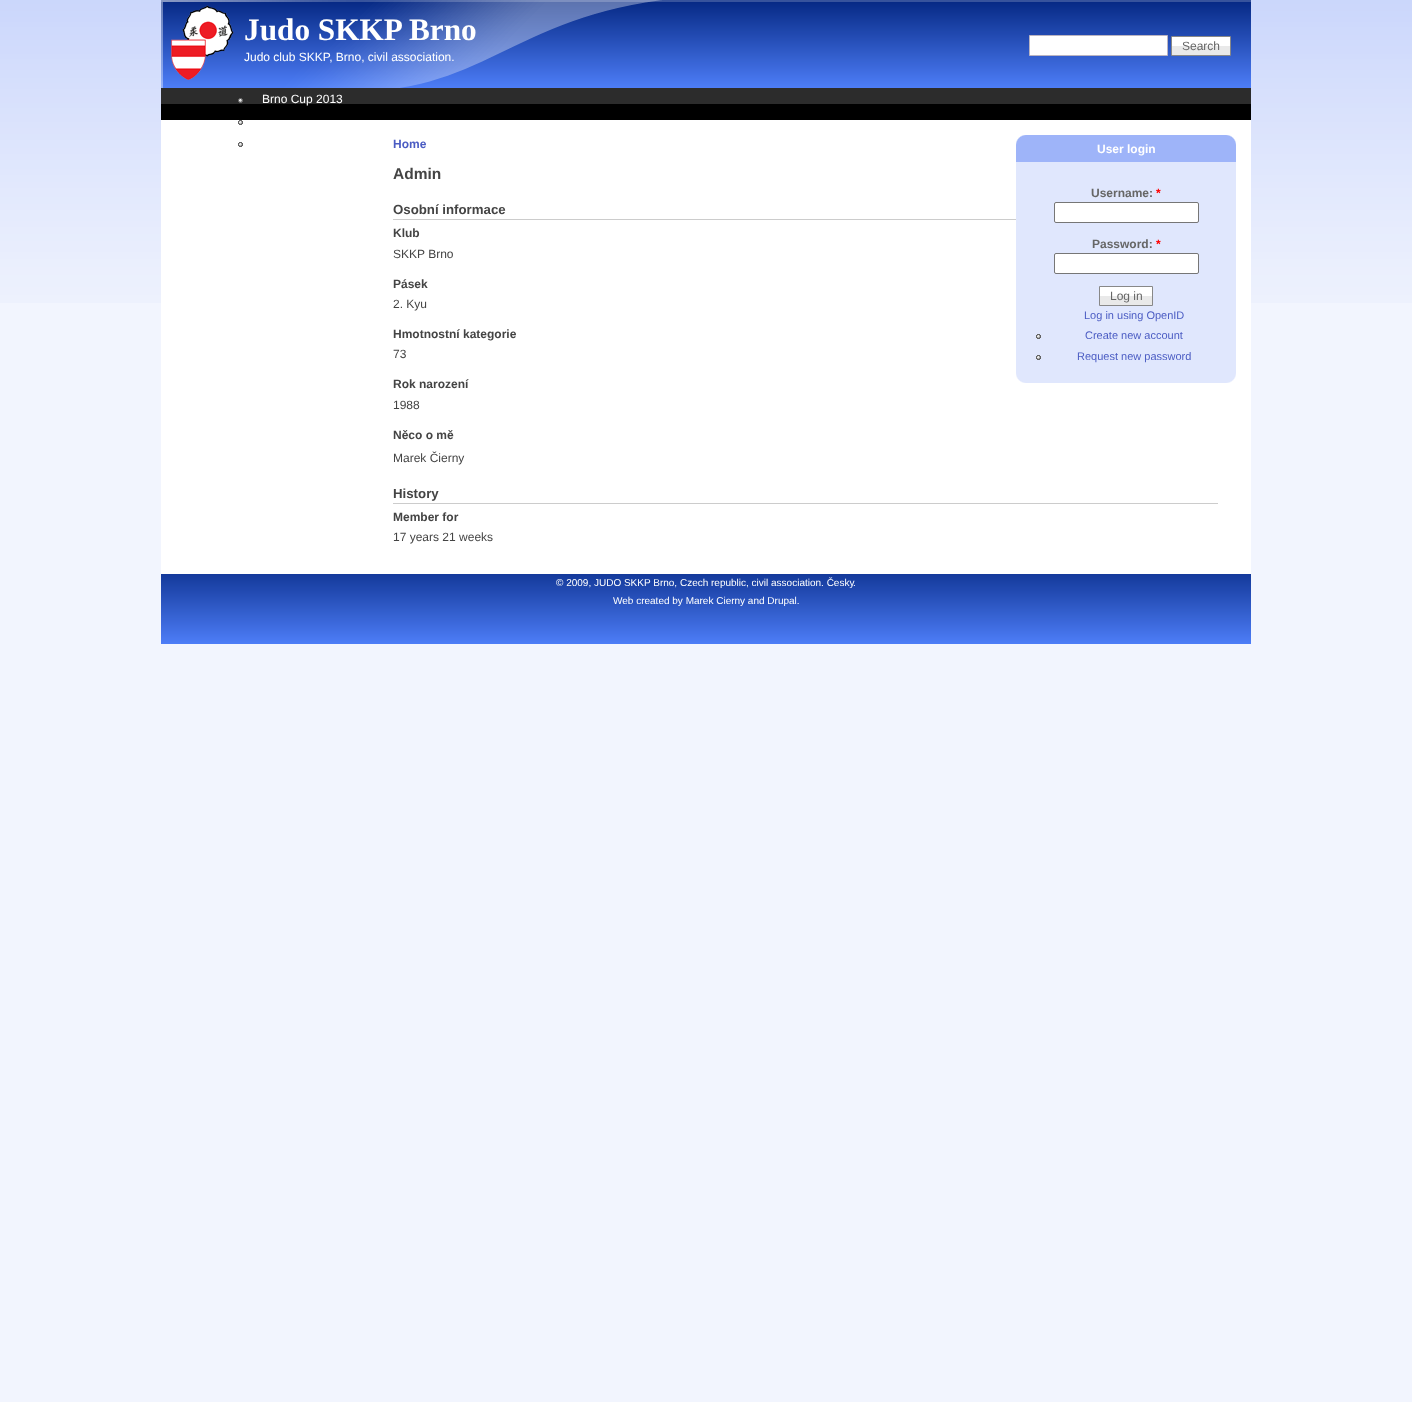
<svg xmlns="http://www.w3.org/2000/svg" width="1412" height="1402" viewBox="0 0 1412 1402">
  <rect width="100%" height="100%" fill="#f2f5fe"/>
  <image x="0" y="0" width="1412" height="303" href="img/1.png"/>
  <path d="M161 120h1090v454H161z" fill="#fff"/>
  <image x="161" y="0" width="1090" height="120" href="img/2.png"/>
  <image x="161" y="0" width="501" height="88" href="img/3.png"/>
  <image x="171" y="5" width="63" height="75" href="img/4.png"/>
  <path d="M1029.5 35.5h138v20H1029.5z" fill="#fff" stroke="#bab4c1"/>
  <path d="M1172 37h58v9H1172z" fill="#fff"/>
  <path d="M1172 46h58v9H1172z" fill="#e9e9e9"/>
  <path d="M1171.5 36.5h59v19H1171.5z" fill="none" stroke="#888"/>
  <image x="238" y="98" width="5" height="5" href="img/5.png"/>
  <image x="238" y="120" width="5" height="5" href="img/6.png"/>
  <image x="238" y="142" width="5" height="5" href="img/6.png"/>
  <path d="M393 219h623v1H393z" fill="#ccc"/>
  <path d="M393 503h825v1H393z" fill="#ccc"/>
  <image x="1026" y="135" width="210" height="27" href="img/7.png"/>
  <image x="1026" y="373" width="210" height="10" href="img/8.png"/>
  <image x="1016" y="135" width="10" height="27" href="img/9.png"/>
  <image x="1016" y="373" width="10" height="10" href="img/10.png"/>
  <path d="M1016 162h220v211H1016z" fill="#e0e7fd"/>
  <rect x="1054.5" y="202.5" width="144" height="20" rx="1.5" fill="#fff" stroke="#767676"/>
  <rect x="1054.5" y="253.5" width="144" height="20" rx="1.5" fill="#fff" stroke="#767676"/>
  <path d="M1100 287h52v9H1100z" fill="#fff"/>
  <path d="M1100 296h52v9H1100z" fill="#e9e9e9"/>
  <path d="M1099.5 286.5h53v19H1099.5z" fill="none" stroke="#888"/>
  <image x="1036" y="334" width="5" height="5" href="img/11.png"/>
  <image x="1036" y="355" width="5" height="5" href="img/11.png"/>
  <image x="161" y="574" width="1090" height="70" href="img/12.png"/>
  <text x="244" y="40" font-family="Liberation Serif" font-size="31.25" font-weight="bold" fill="#fff">Judo SKKP Brno</text>
  <text x="244" y="61" font-family="Liberation Sans" font-size="12" fill="#fff">Judo club SKKP, Brno, civil association.</text>
  <text x="1182" y="50" font-family="Liberation Sans" font-size="12" fill="#666">Search</text>
  <text x="262" y="103" font-family="Liberation Sans" font-size="12" fill="#fff">Brno Cup 2013</text>
  <text x="393" y="148" font-family="Liberation Sans" font-size="12" font-weight="bold" fill="#4b5cc3">Home</text>
  <text x="393" y="179" font-family="Liberation Sans" font-size="15.5" font-weight="bold" fill="#444">Admin</text>
  <text x="393" y="214" font-family="Liberation Sans" font-size="13.25" font-weight="bold" fill="#444">Osobní informace</text>
  <text x="393" y="237" font-family="Liberation Sans" font-size="12" font-weight="bold" fill="#444">Klub</text>
  <text x="393" y="258" font-family="Liberation Sans" font-size="12" fill="#444">SKKP Brno</text>
  <text x="393" y="288" font-family="Liberation Sans" font-size="12" font-weight="bold" fill="#444">Pásek</text>
  <text x="393" y="308" font-family="Liberation Sans" font-size="12" fill="#444">2. Kyu</text>
  <text x="393" y="338" font-family="Liberation Sans" font-size="12" font-weight="bold" fill="#444">Hmotnostní kategorie</text>
  <text x="393" y="358" font-family="Liberation Sans" font-size="12" fill="#444">73</text>
  <text x="393" y="388" font-family="Liberation Sans" font-size="12" font-weight="bold" fill="#444">Rok narození</text>
  <text x="393" y="409" font-family="Liberation Sans" font-size="12" fill="#444">1988</text>
  <text x="393" y="439" font-family="Liberation Sans" font-size="12" font-weight="bold" fill="#444">Něco o mě</text>
  <text x="393" y="462" font-family="Liberation Sans" font-size="12" fill="#444">Marek Čierny</text>
  <text x="393" y="498" font-family="Liberation Sans" font-size="13.25" font-weight="bold" fill="#444">History</text>
  <text x="393" y="521" font-family="Liberation Sans" font-size="12" font-weight="bold" fill="#444">Member for</text>
  <text x="393" y="541" font-family="Liberation Sans" font-size="12" fill="#444">17 years 21 weeks</text>
  <text x="1097" y="153" font-family="Liberation Sans" font-size="12" font-weight="bold" fill="#fff">User login</text>
  <text x="1091" y="197" font-family="Liberation Sans" font-size="12" font-weight="bold" fill="#666">Username:</text>
  <text x="1156" y="197" font-family="Liberation Sans" font-size="12" font-weight="bold" fill="#f00">*</text>
  <text x="1092" y="248" font-family="Liberation Sans" font-size="12" font-weight="bold" fill="#666">Password:</text>
  <text x="1156" y="248" font-family="Liberation Sans" font-size="12" font-weight="bold" fill="#f00">*</text>
  <text x="1110" y="300" font-family="Liberation Sans" font-size="12" fill="#666">Log in</text>
  <g font-family="Liberation Sans" font-size="11" fill="#4b5cc3">
    <text x="1084" y="319">Log in using OpenID</text>
    <text x="1085" y="339">Create new account</text>
    <text x="1077" y="360">Request new password</text>
  </g>
  <g font-family="Liberation Sans" font-size="10" fill="#fff">
    <text x="556" y="586">© 2009, JUDO SKKP Brno, Czech republic, civil association. Česky</text>
    <text x="853" y="586">.</text>
    <text x="613" y="604">Web created by Marek Cierny and Drupal.</text>
  </g>
</svg>
